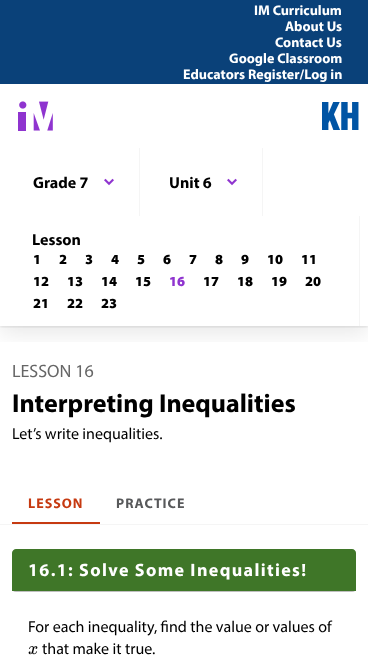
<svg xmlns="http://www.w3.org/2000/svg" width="368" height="657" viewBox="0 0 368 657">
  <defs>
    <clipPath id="clip1"><path d="M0 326h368v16H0z"/></clipPath>
    <clipPath id="clip2"><path d="M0 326h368v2H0z"/></clipPath>
  </defs>
  <rect width="100%" height="100%" fill="#fff"/>
  <g clip-path="url(#clip1)">
    <path d="M0 90h368v242H0z" fill="#0000001a" filter="blur(12px)"/>
  </g>
  <g clip-path="url(#clip2)">
    <path d="M0 85h368v242H0z" fill="#0000001a" filter="blur(1.5px)"/>
  </g>
  <path d="M0 0h368v84H0z" fill="#0a4179"/>
  <image x="18" y="101" width="35" height="30" href="img/1.png"/>
  <image x="322" y="102" width="37" height="28" href="img/2.png"/>
  <path d="M139 148h1v68H139z" fill="#f5f5f5"/>
  <image x="104" y="178" width="10" height="8" href="img/3.png"/>
  <path d="M262 148h1v68H262z" fill="#f5f5f5"/>
  <image x="227" y="178" width="10" height="8" href="img/3.png"/>
  <path d="M359 216h1v110H359z" fill="#f5f5f5"/>
  <path d="M0 524h368v1H0z" fill="#f5f5f5"/>
  <path d="M12 522h88v2H12z" fill="#c63a11"/>
  <rect x="12" y="550" width="344" height="42" rx="4" fill="#00000040" filter="blur(0.5px)"/>
  <path d="M16 549H352C354 549 356 551 356 553V591H12V553C12 551 14 549 16 549Z" fill="#3f7628"/>
  <image x="28" y="646" width="10" height="9" href="img/4.png"/>
  <g font-family="Myriad" font-size="14" font-weight="bold" fill="#fff">
    <text x="254" y="15">IM Curriculum</text>
    <text x="285" y="31">About Us</text>
    <text x="275" y="47">Contact Us</text>
    <text x="229" y="63">Google Classroom</text>
    <text x="183" y="79">Educators Register/Log in</text>
  </g>
  <g font-family="Myriad" font-size="16" font-weight="bold" fill="#000">
    <text x="33" y="188">Grade 7</text>
    <text x="169" y="188">Unit 6</text>
    <text x="32" y="245">Lesson</text>
  </g>
  <g font-family="Myriad" font-size="14" font-weight="900" fill="#000">
    <text x="33" y="264">1</text>
    <text x="59" y="264">2</text>
    <text x="85" y="264">3</text>
    <text x="111" y="264">4</text>
    <text x="137" y="264">5</text>
    <text x="163" y="264">6</text>
    <text x="189" y="264">7</text>
    <text x="215" y="264">8</text>
    <text x="241" y="264">9</text>
    <text x="267" y="264">10</text>
    <text x="301" y="264">11</text>
    <text x="33" y="286">12</text>
    <text x="67" y="286">13</text>
    <text x="101" y="286">14</text>
    <text x="135" y="286">15</text>
  </g>
  <text x="169" y="286" font-family="Myriad" font-size="14" font-weight="900" fill="#8f34cf">16</text>
  <g font-family="Myriad" font-size="14" font-weight="900" fill="#000">
    <text x="203" y="286">17</text>
    <text x="237" y="286">18</text>
    <text x="271" y="286">19</text>
    <text x="305" y="286">20</text>
    <text x="33" y="308">21</text>
    <text x="67" y="308">22</text>
    <text x="101" y="308">23</text>
  </g>
  <text x="12" y="377" font-family="Myriad" font-size="18" fill="#666">LESSON 16</text>
  <text x="12" y="412" font-family="Myriad" font-size="26" font-weight="bold" fill="#000">Interpreting Inequalities</text>
  <text x="12" y="439" font-family="Myriad" font-size="16" fill="#000">Let’s write inequalities.</text>
  <text x="28" y="508" font-family="Myriad" font-size="14" font-weight="bold" letter-spacing="1" fill="#c63a11">LESSON</text>
  <text x="116" y="508" font-family="Myriad" font-size="14" font-weight="bold" letter-spacing="1" fill="#58595b">PRACTICE</text>
  <text x="28" y="576" font-family="Myriad" font-size="18" font-weight="bold" letter-spacing="1.35" fill="#fff">16.1: Solve Some Inequalities!</text>
  <g font-family="Myriad" font-size="16" fill="#000">
    <text x="28" y="632">For each inequality, find the value or values of</text>
    <text x="42" y="654">that make it true.</text>
  </g>
</svg>
